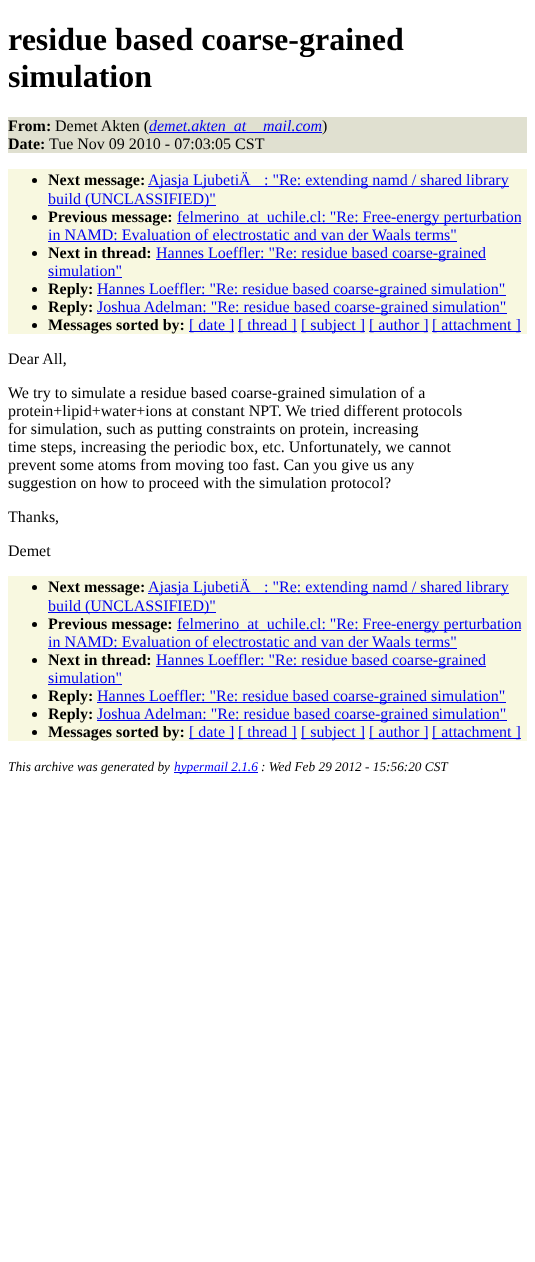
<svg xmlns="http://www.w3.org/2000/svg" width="535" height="1262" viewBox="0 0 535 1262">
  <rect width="100%" height="100%" fill="#fff"/>
  <path d="M8 117h519v36H8z" fill="#e0e0d0"/>
  <path d="M149 132h173v1H149z" fill="#00e"/>
  <path d="M8 169h519v165H8z" fill="#f8f8e0"/>
  <circle cx="34.5" cy="180.5" r="2.5" fill="#000"/>
  <path d="M148 186h361v1H148z" fill="#00e"/>
  <path d="M48 205h168v1H48z" fill="#00e"/>
  <circle cx="34.5" cy="217.5" r="2.5" fill="#000"/>
  <path d="M177 223h344v1H177z" fill="#00e"/>
  <path d="M48 241h409v1H48z" fill="#00e"/>
  <circle cx="34.5" cy="253.5" r="2.5" fill="#000"/>
  <path d="M156 259h330v1H156z" fill="#00e"/>
  <path d="M48 277h74v1H48z" fill="#00e"/>
  <circle cx="34.5" cy="289.5" r="2.5" fill="#000"/>
  <path d="M97 295h409v1H97z" fill="#00e"/>
  <circle cx="34.5" cy="307.5" r="2.5" fill="#000"/>
  <path d="M97 313h410v1H97z" fill="#00e"/>
  <circle cx="34.5" cy="325.5" r="2.5" fill="#000"/>
  <path d="M189 331h45v1H189z" fill="#00e"/>
  <path d="M238 331h59v1H238z" fill="#00e"/>
  <path d="M301 331h64v1H301z" fill="#00e"/>
  <path d="M369 331h59v1H369z" fill="#00e"/>
  <path d="M432 331h89v1H432z" fill="#00e"/>
  <path d="M8 576h519v165H8z" fill="#f8f8e0"/>
  <circle cx="34.5" cy="587.5" r="2.5" fill="#000"/>
  <path d="M148 593h361v1H148z" fill="#00e"/>
  <path d="M48 612h168v1H48z" fill="#00e"/>
  <circle cx="34.5" cy="624.5" r="2.5" fill="#000"/>
  <path d="M177 630h344v1H177z" fill="#00e"/>
  <path d="M48 648h409v1H48z" fill="#00e"/>
  <circle cx="34.5" cy="660.5" r="2.5" fill="#000"/>
  <path d="M156 666h330v1H156z" fill="#00e"/>
  <path d="M48 684h74v1H48z" fill="#00e"/>
  <circle cx="34.5" cy="696.5" r="2.5" fill="#000"/>
  <path d="M97 702h409v1H97z" fill="#00e"/>
  <circle cx="34.5" cy="714.5" r="2.5" fill="#000"/>
  <path d="M97 720h410v1H97z" fill="#00e"/>
  <circle cx="34.5" cy="732.5" r="2.5" fill="#000"/>
  <path d="M189 738h45v1H189z" fill="#00e"/>
  <path d="M238 738h59v1H238z" fill="#00e"/>
  <path d="M301 738h64v1H301z" fill="#00e"/>
  <path d="M369 738h59v1H369z" fill="#00e"/>
  <path d="M432 738h89v1H432z" fill="#00e"/>
  <path d="M174 772h84v1H174z" fill="#00e"/>
  <g font-family="Liberation Serif" font-size="32" font-weight="bold" fill="#000">
    <text x="8" y="50">residue based coarse-grained</text>
    <text x="8" y="87">simulation</text>
  </g>
  <text x="8" y="131" font-family="Liberation Serif" font-size="16" font-weight="bold" fill="#000">From:</text>
  <text x="55" y="131" font-family="Liberation Serif" font-size="16" fill="#000">Demet Akten (</text>
  <g font-family="Liberation Serif" font-size="16" font-style="italic" fill="#00e">
    <text x="149" y="131">demet.akten_at</text>
    <text x="263" y="131">mail.com</text>
  </g>
  <text x="322" y="131" font-family="Liberation Serif" font-size="16" fill="#000">)</text>
  <text x="8" y="149" font-family="Liberation Serif" font-size="16" font-weight="bold" fill="#000">Date:</text>
  <text x="49" y="149" font-family="Liberation Serif" font-size="16" fill="#000">Tue Nov 09 2010 - 07:03:05 CST</text>
  <text x="48" y="185" font-family="Liberation Serif" font-size="16" font-weight="bold" fill="#000">Next message:</text>
  <g font-family="Liberation Serif" font-size="16" fill="#00e">
    <text x="148" y="185">Ajasja LjubetiÄ</text>
    <text x="264" y="185">: "Re: extending namd / shared library</text>
    <text x="48" y="204">build (UNCLASSIFIED)"</text>
  </g>
  <text x="48" y="222" font-family="Liberation Serif" font-size="16" font-weight="bold" fill="#000">Previous message:</text>
  <g font-family="Liberation Serif" font-size="16" fill="#00e">
    <text x="177" y="222">felmerino_at_uchile.cl: "Re: Free-energy perturbation</text>
    <text x="48" y="240">in NAMD: Evaluation of electrostatic and van der Waals terms"</text>
  </g>
  <text x="48" y="258" font-family="Liberation Serif" font-size="16" font-weight="bold" fill="#000">Next in thread:</text>
  <g font-family="Liberation Serif" font-size="16" fill="#00e">
    <text x="156" y="258">Hannes Loeffler: "Re: residue based coarse-grained</text>
    <text x="48" y="276">simulation"</text>
  </g>
  <text x="48" y="294" font-family="Liberation Serif" font-size="16" font-weight="bold" fill="#000">Reply:</text>
  <text x="97" y="294" font-family="Liberation Serif" font-size="16" fill="#00e">Hannes Loeffler: "Re: residue based coarse-grained simulation"</text>
  <text x="48" y="312" font-family="Liberation Serif" font-size="16" font-weight="bold" fill="#000">Reply:</text>
  <text x="97" y="312" font-family="Liberation Serif" font-size="16" fill="#00e">Joshua Adelman: "Re: residue based coarse-grained simulation"</text>
  <text x="48" y="330" font-family="Liberation Serif" font-size="16" font-weight="bold" fill="#000">Messages sorted by:</text>
  <g font-family="Liberation Serif" font-size="16" fill="#00e">
    <text x="189" y="330">[ date ]</text>
    <text x="238" y="330">[ thread ]</text>
    <text x="301" y="330">[ subject ]</text>
    <text x="369" y="330">[ author ]</text>
    <text x="432" y="330">[ attachment ]</text>
  </g>
  <g font-family="Liberation Serif" font-size="16" fill="#000">
    <text x="8" y="364">Dear All,</text>
    <text x="8" y="398">We try to simulate a residue based coarse-grained simulation of a</text>
    <text x="8" y="416">protein+lipid+water+ions at constant NPT. We tried different protocols</text>
    <text x="8" y="434">for simulation, such as putting constraints on protein, increasing</text>
    <text x="8" y="452">time steps, increasing the periodic box, etc. Unfortunately, we cannot</text>
    <text x="8" y="470">prevent some atoms from moving too fast. Can you give us any</text>
    <text x="8" y="488">suggestion on how to proceed with the simulation protocol?</text>
    <text x="8" y="522">Thanks,</text>
    <text x="8" y="556">Demet</text>
  </g>
  <text x="48" y="592" font-family="Liberation Serif" font-size="16" font-weight="bold" fill="#000">Next message:</text>
  <g font-family="Liberation Serif" font-size="16" fill="#00e">
    <text x="148" y="592">Ajasja LjubetiÄ</text>
    <text x="264" y="592">: "Re: extending namd / shared library</text>
    <text x="48" y="611">build (UNCLASSIFIED)"</text>
  </g>
  <text x="48" y="629" font-family="Liberation Serif" font-size="16" font-weight="bold" fill="#000">Previous message:</text>
  <g font-family="Liberation Serif" font-size="16" fill="#00e">
    <text x="177" y="629">felmerino_at_uchile.cl: "Re: Free-energy perturbation</text>
    <text x="48" y="647">in NAMD: Evaluation of electrostatic and van der Waals terms"</text>
  </g>
  <text x="48" y="665" font-family="Liberation Serif" font-size="16" font-weight="bold" fill="#000">Next in thread:</text>
  <g font-family="Liberation Serif" font-size="16" fill="#00e">
    <text x="156" y="665">Hannes Loeffler: "Re: residue based coarse-grained</text>
    <text x="48" y="683">simulation"</text>
  </g>
  <text x="48" y="701" font-family="Liberation Serif" font-size="16" font-weight="bold" fill="#000">Reply:</text>
  <text x="97" y="701" font-family="Liberation Serif" font-size="16" fill="#00e">Hannes Loeffler: "Re: residue based coarse-grained simulation"</text>
  <text x="48" y="719" font-family="Liberation Serif" font-size="16" font-weight="bold" fill="#000">Reply:</text>
  <text x="97" y="719" font-family="Liberation Serif" font-size="16" fill="#00e">Joshua Adelman: "Re: residue based coarse-grained simulation"</text>
  <text x="48" y="737" font-family="Liberation Serif" font-size="16" font-weight="bold" fill="#000">Messages sorted by:</text>
  <g font-family="Liberation Serif" font-size="16" fill="#00e">
    <text x="189" y="737">[ date ]</text>
    <text x="238" y="737">[ thread ]</text>
    <text x="301" y="737">[ subject ]</text>
    <text x="369" y="737">[ author ]</text>
    <text x="432" y="737">[ attachment ]</text>
  </g>
  <text x="8" y="771" font-family="Liberation Serif" font-size="13.3" font-style="italic" fill="#000">This archive was generated by</text>
  <text x="174" y="771" font-family="Liberation Serif" font-size="13.3" font-style="italic" fill="#00e">hypermail 2.1.6</text>
  <text x="261" y="771" font-family="Liberation Serif" font-size="13.3" font-style="italic" fill="#000">: Wed Feb 29 2012 - 15:56:20 CST</text>
</svg>
